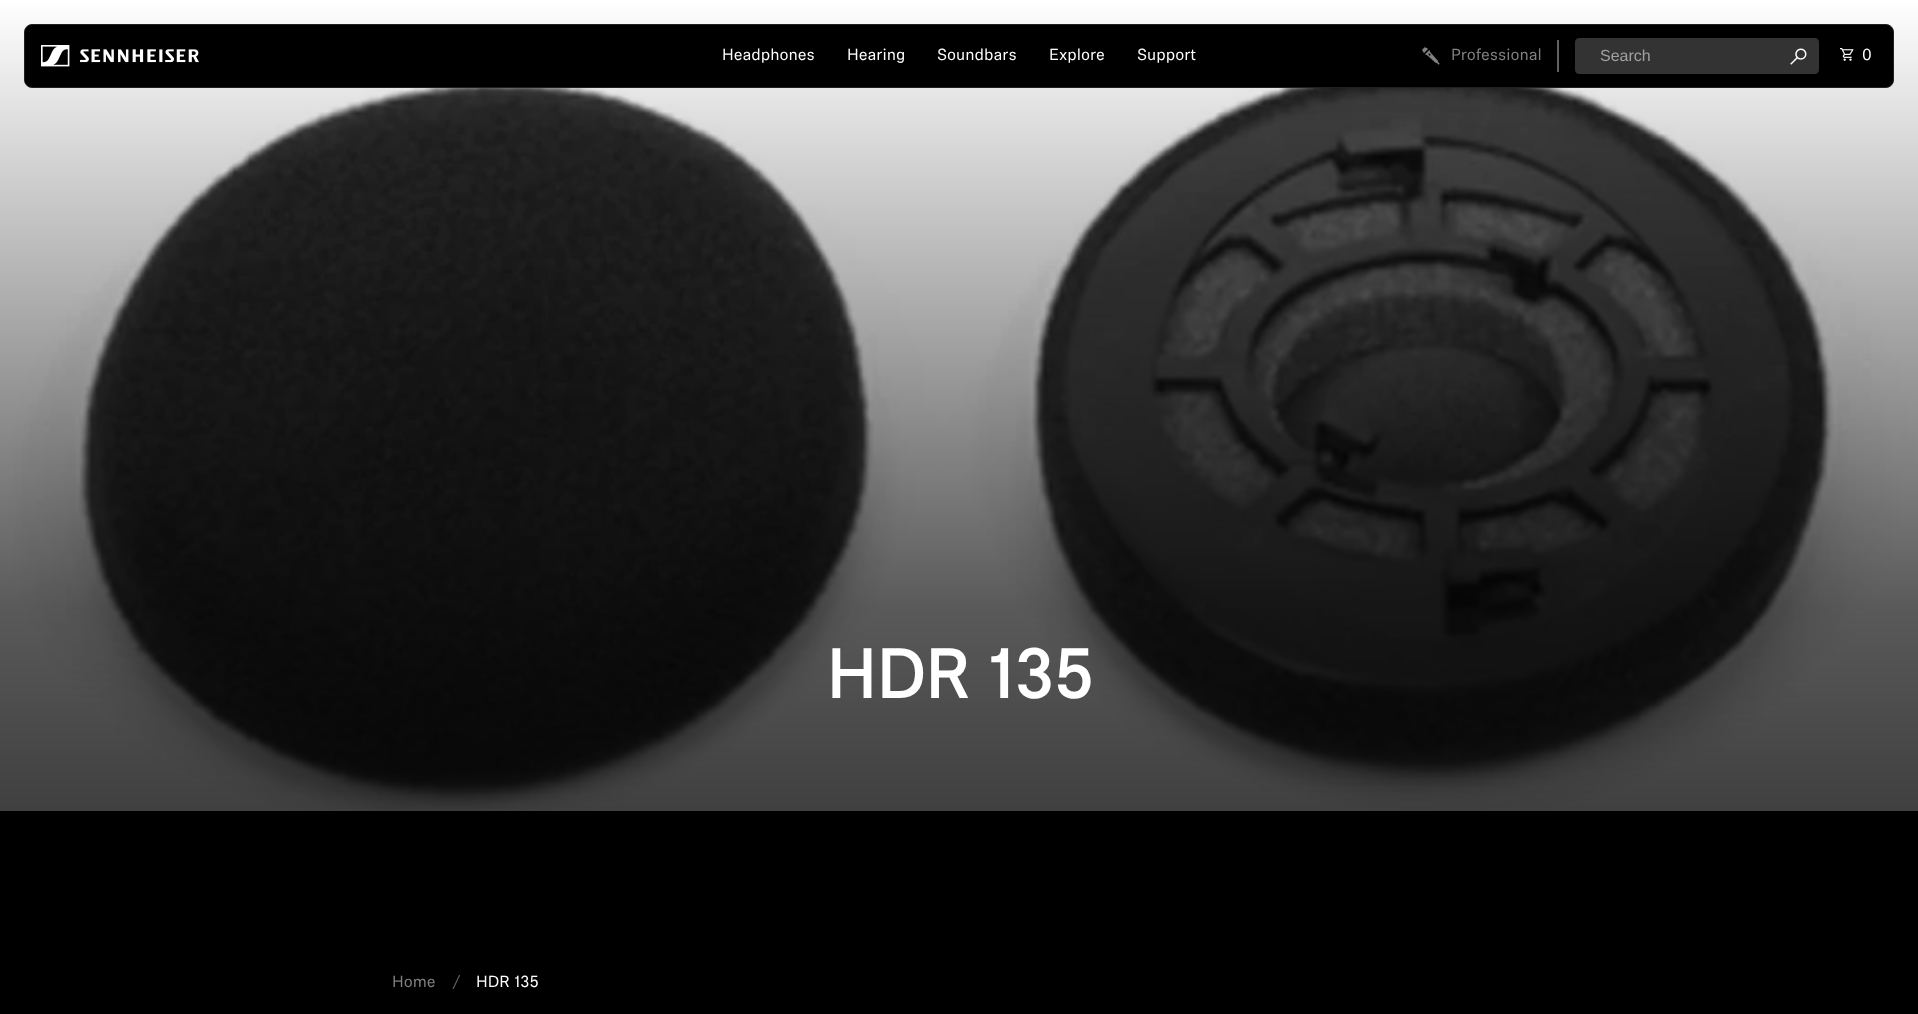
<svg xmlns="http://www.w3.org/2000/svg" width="1918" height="1014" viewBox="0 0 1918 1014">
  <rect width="100%" height="100%" fill="#000"/>
  <image x="0" y="0" width="1918" height="811" href="img/5.png"/>
  <rect x="24.5" y="24.5" width="1869" height="63" rx="7.5" fill="#000" stroke="#222"/>
  <image x="41" y="45" width="158" height="22" href="img/1.png"/>
  <image x="1422" y="47" width="18" height="18" href="img/2.png"/>
  <path d="M1557 40h2v32H1557z" fill="#616267"/>
  <rect x="1575.5" y="38.5" width="243" height="35" rx="3.5" fill="#333" stroke="#333"/>
  <image x="1790" y="48" width="17" height="17" href="img/3.png"/>
  <image x="1840" y="48" width="14" height="13" href="img/4.png"/>
  <g font-family="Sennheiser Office" font-size="16" fill="#fff">
    <text x="722" y="60">Headphones</text>
    <text x="847" y="60">Hearing</text>
    <text x="937" y="60">Soundbars</text>
    <text x="1049" y="60">Explore</text>
    <text x="1137" y="60">Support</text>
  </g>
  <text x="1451" y="60" font-family="Sennheiser Office" font-size="16" fill="#818183">Professional</text>
  <text x="1600" y="61" font-family="Liberation Sans" font-size="16" fill="#a1a1a1">Search</text>
  <text x="1862" y="60" font-family="Sennheiser Office" font-size="16" fill="#fff">0</text>
  <text x="826" y="698" font-family="Sennheiser Office" font-size="68" font-weight="bold" fill="#fff">HDR 135</text>
  <text x="392" y="987" font-family="Sennheiser Office" font-size="16" fill="#818183">Home</text>
  <text x="452" y="987" font-family="Sennheiser Office" font-size="16" fill="#616267">/</text>
  <text x="476" y="987" font-family="Sennheiser Office" font-size="16" fill="#fff">HDR 135</text>
</svg>
